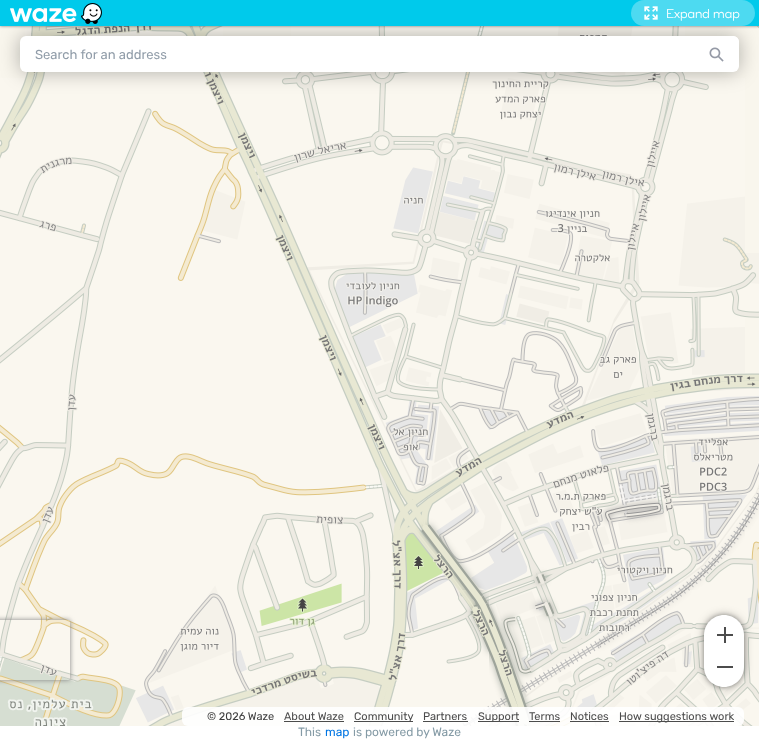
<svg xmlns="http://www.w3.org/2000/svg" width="759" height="740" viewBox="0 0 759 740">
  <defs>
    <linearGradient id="g1" gradientUnits="userSpaceOnUse" x1="689" y1="53" x2="739" y2="53"><stop offset="0" stop-color="#fff" stop-opacity="0"/><stop offset="0.25" stop-color="#fff"/><stop offset="1" stop-color="#fff"/></linearGradient>
    <clipPath id="clip1"><path d="M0 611H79V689H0ZM-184 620H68C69 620 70 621 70 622V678C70 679 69 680 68 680H-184C-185 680-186 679-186 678V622C-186 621-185 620-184 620Z" clip-rule="evenodd"/></clipPath>
  </defs>
  <rect width="100%" height="100%" fill="#fff"/>
  <path d="M0 26h759v347H0z" fill="#f9f6ed"/>
  <image x="25" y="26" width="198" height="52" href="img/3.png"/>
  <image x="291" y="26" width="198" height="52" href="img/4.png"/>
  <image x="489" y="26" width="196" height="52" href="img/5.png"/>
  <image x="757" y="26" width="2" height="2" href="img/6.png"/>
  <path d="M0 0h759v26H0z" fill="#00000080" filter="blur(1.5px)"/>
  <image x="0" y="78" width="233" height="256" href="img/7.png"/>
  <image x="233" y="78" width="256" height="256" href="img/8.png"/>
  <image x="489" y="78" width="256" height="256" href="img/9.png"/>
  <rect x="20" y="36" width="719" height="36" rx="6" fill="#0000004d" filter="blur(10px)"/>
  <path d="M0 0h759v26H0z" fill="#00caeb"/>
  <image x="10" y="3" width="92" height="21" href="img/1.png"/>
  <rect x="631" width="124" height="26" rx="13" fill="#4ddaf1"/>
  <image x="644" y="6" width="14" height="14" href="img/2.png"/>
  <image x="745" y="253" width="14" height="65" href="img/10.png"/>
  <image x="0" y="334" width="233" height="256" href="img/11.png"/>
  <image x="233" y="334" width="256" height="256" href="img/12.png"/>
  <image x="489" y="334" width="256" height="256" href="img/13.png"/>
  <image x="745" y="373" width="14" height="217" href="img/14.png"/>
  <image x="0" y="590" width="233" height="136" href="img/15.png"/>
  <image x="233" y="590" width="256" height="136" href="img/16.png"/>
  <image x="489" y="590" width="256" height="136" href="img/17.png"/>
  <image x="745" y="590" width="14" height="136" href="img/18.png"/>
  <rect x="20" y="36" width="719" height="36" rx="6" fill="#fff"/>
  <rect x="689" y="36" width="50" height="34" rx="6" fill="url(#g1)"/>
  <image x="709" y="47" width="15" height="15" href="img/19.png"/>
  <rect x="704" y="615" width="40" height="72" rx="20" fill="#0000004d" filter="blur(5px)"/>
  <rect x="704" y="615" width="40" height="72" rx="20" fill="#0000004d" filter="blur(2px)"/>
  <path d="M724 615C735 615 744 624 744 635V651H704V635C704 624 713 615 724 615Z" fill="#fff"/>
  <image x="717" y="627" width="16" height="16" href="img/20.png"/>
  <path d="M704 651H744V667C744 678 735 687 724 687C713 687 704 678 704 667Z" fill="#fff"/>
  <path d="M717 666h16v2H717z" fill="#4c4c4c"/>
  <rect x="182" y="707" width="562" height="19" rx="6" fill="#ffffffe6"/>
  <path d="M284 721h60v1H284z" fill="#4c4c4c"/>
  <path d="M354 721h59v1H354z" fill="#4c4c4c"/>
  <path d="M423 721h45v1H423z" fill="#4c4c4c"/>
  <path d="M478 721h41v1H478z" fill="#4c4c4c"/>
  <path d="M529 721h31v1H529z" fill="#4c4c4c"/>
  <path d="M570 721h39v1H570z" fill="#4c4c4c"/>
  <path d="M619 721h115v1H619z" fill="#4c4c4c"/>
  <g clip-path="url(#clip1)">
    <rect x="-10" y="620" width="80" height="60" rx="2" fill="#808080" filter="blur(2.5px)"/>
  </g>
  <text x="666" y="18" font-family="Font" font-size="13" font-weight="300" fill="#fff">Expand map</text>
  <text x="35" y="59" font-family="Rubik" font-size="13" fill="#919da9">Search for an address</text>
  <text x="207" y="720" font-family="Rubik" font-size="11" fill="#3d3d3d">© 2026 Waze</text>
  <g font-family="Rubik" font-size="11" fill="#4c4c4c">
    <text x="284" y="720">About Waze</text>
    <text x="354" y="720">Community</text>
    <text x="423" y="720">Partners</text>
    <text x="478" y="720">Support</text>
    <text x="529" y="720">Terms</text>
    <text x="570" y="720">Notices</text>
    <text x="619" y="720">How suggestions work</text>
  </g>
  <text x="298" y="736" font-family="Rubik" font-size="12" fill="#859ba6">This</text>
  <text x="325" y="736" font-family="Rubik" font-size="12" fill="#0075e3">map</text>
  <text x="353" y="736" font-family="Rubik" font-size="12" fill="#859ba6">is powered by Waze</text>
</svg>
